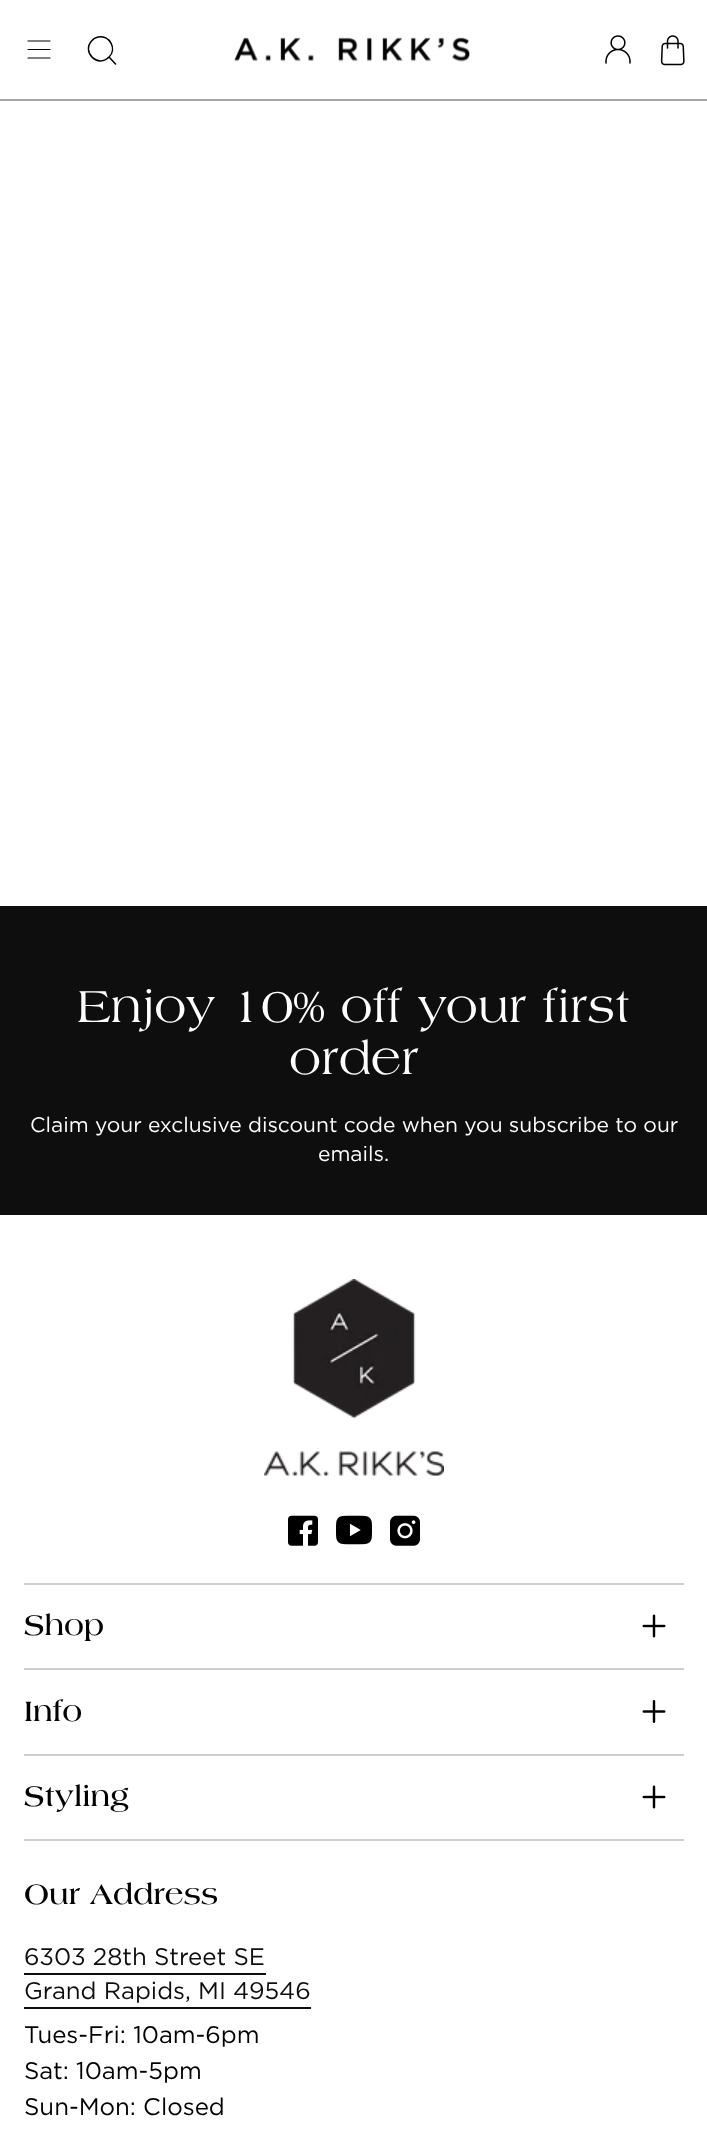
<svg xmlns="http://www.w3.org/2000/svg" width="707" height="2136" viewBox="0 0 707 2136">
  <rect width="100%" height="100%" fill="#fff"/>
  <path d="M28 41H50M28 49.5H50M28 58H50" fill="none" stroke="#000" stroke-width="1.2" stroke-linecap="round" stroke-linejoin="round"/>
  <path d="M115.5 64L109 57M109 57C117.5 49 109.5 34.5 98 37C96 37.5 93.5 38.5 92 40.5C81 52 98 68.5 109 57Z" fill="none" stroke="#000" stroke-width="1.5" stroke-linecap="round" stroke-linejoin="round"/>
  <image x="234" y="37" width="237" height="25" href="img/1.png"/>
  <image x="605" y="35" width="26" height="29" href="img/2.png"/>
  <image x="660" y="35" width="25" height="31" href="img/3.png"/>
  <path d="M0 99h707v2H0z" fill="#a6a6a6"/>
  <path d="M0 906h707v309H0z" fill="#0e0e0e"/>
  <image x="264" y="1279" width="180" height="197" href="img/4.png"/>
  <image x="288" y="1515" width="30" height="31" href="img/5.png"/>
  <image x="336" y="1515" width="36" height="30" href="img/6.png"/>
  <image x="390" y="1515" width="30" height="31" href="img/7.png"/>
  <path d="M24 1583h660v2H24z" fill="#cecece"/>
  <path d="M24 1668h660v2H24z" fill="#cecece"/>
  <image x="642" y="1614" width="24" height="24" href="img/8.png"/>
  <path d="M24 1754h660v2H24z" fill="#cecece"/>
  <image x="642" y="1700" width="24" height="23" href="img/9.png"/>
  <path d="M24 1839h660v2H24z" fill="#cecece"/>
  <image x="642" y="1785" width="24" height="24" href="img/8.png"/>
  <path d="M24 1973h242v2H24z" fill="#0e0e0e"/>
  <path d="M24 2007h287v2H24z" fill="#0e0e0e"/>
  <g font-family="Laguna" font-size="48" fill="#fff">
    <text x="77" y="1022">Enjoy 10% off your first</text>
    <text x="289" y="1074">order</text>
  </g>
  <g font-family="Gotham" font-size="21" fill="#fff">
    <text x="30" y="1132">Claim your exclusive discount code when you subscribe to our</text>
    <text x="318" y="1161">emails.</text>
  </g>
  <g font-family="Laguna" font-size="30" font-weight="bold" font-style="italic" fill="#000">
    <text x="24" y="1635">Shop</text>
    <text x="24" y="1721">Info</text>
    <text x="24" y="1806">Styling</text>
    <text x="24" y="1904">Our Address</text>
  </g>
  <g font-family="Gotham" font-size="24" fill="#0e0e0e">
    <text x="24" y="1965">6303 28th Street SE</text>
    <text x="24" y="1999">Grand Rapids, MI 49546</text>
  </g>
  <g font-family="Gotham" font-size="24" fill="#000">
    <text x="24" y="2043">Tues-Fri: 10am-6pm</text>
    <text x="24" y="2079">Sat: 10am-5pm</text>
    <text x="24" y="2115">Sun-Mon: Closed</text>
  </g>
</svg>
